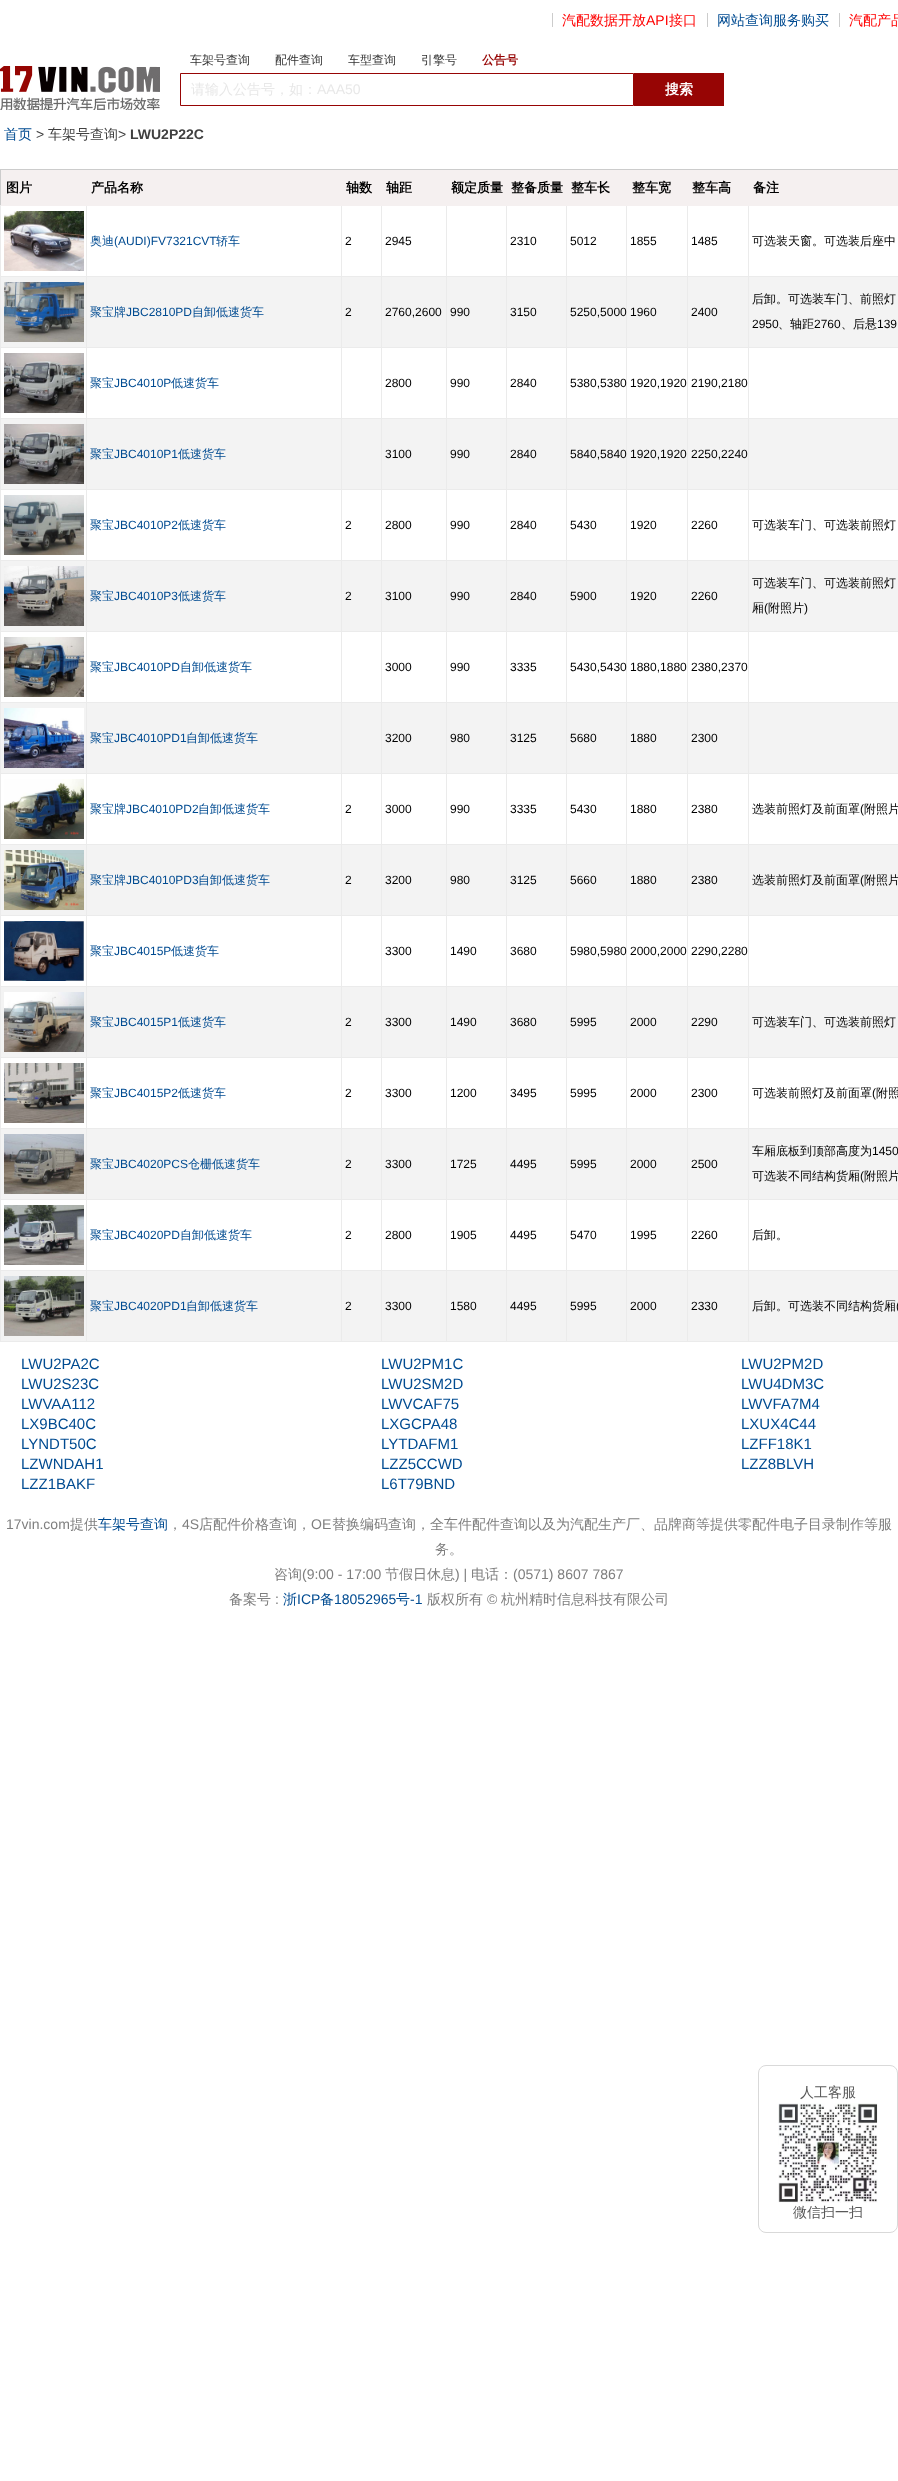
<svg xmlns="http://www.w3.org/2000/svg" width="898" height="2481" viewBox="0 0 898 2481">
  <rect width="100%" height="100%" fill="#fff"/>
  <path d="M552 13h1v14H552z" fill="#ccc"/>
  <path d="M707 13h1v14H707z" fill="#ccc"/>
  <path d="M839 13h1v14H839z" fill="#ccc"/>
  <image x="0" y="66" width="160" height="44" href="img/1.png"/>
  <path d="M180.5 73.5h453v32H180.5z" fill="none" stroke="#970504"/>
  <path d="M634 73h90v33H634z" fill="#970504"/>
  <path d="M0 169h898v1H0z" fill="#ccc"/>
  <path d="M0 169h1v37H0z" fill="#ccc"/>
  <path d="M748 276h150v1H748z" fill="#ebebeb"/>
  <path d="M1 277h897v70H1z" fill="#f3f3f3"/>
  <path d="M748 347h150v1H748z" fill="#ebebeb"/>
  <path d="M748 418h150v1H748z" fill="#ebebeb"/>
  <path d="M1 419h897v70H1z" fill="#f3f3f3"/>
  <path d="M748 489h150v1H748z" fill="#ebebeb"/>
  <path d="M748 560h150v1H748z" fill="#ebebeb"/>
  <path d="M1 561h897v70H1z" fill="#f3f3f3"/>
  <path d="M748 631h150v1H748z" fill="#ebebeb"/>
  <path d="M748 702h150v1H748z" fill="#ebebeb"/>
  <path d="M1 703h897v70H1z" fill="#f3f3f3"/>
  <path d="M748 773h150v1H748z" fill="#ebebeb"/>
  <path d="M748 844h150v1H748z" fill="#ebebeb"/>
  <path d="M1 845h897v70H1z" fill="#f3f3f3"/>
  <path d="M748 915h150v1H748z" fill="#ebebeb"/>
  <path d="M748 986h150v1H748z" fill="#ebebeb"/>
  <path d="M1 987h897v70H1z" fill="#f3f3f3"/>
  <path d="M748 1057h150v1H748z" fill="#ebebeb"/>
  <path d="M748 1128h150v1H748z" fill="#ebebeb"/>
  <path d="M1 1129h897v70H1z" fill="#f3f3f3"/>
  <path d="M748 1199h150v1H748z" fill="#ebebeb"/>
  <path d="M748 1270h150v1H748z" fill="#ebebeb"/>
  <path d="M1 1271h897v70H1z" fill="#f3f3f3"/>
  <path d="M748 1341h150v1H748z" fill="#ebebeb"/>
  <path d="M748 1270h1v72H748z" fill="#ebebeb"/>
  <path d="M687 1270h62v1H687z" fill="#ebebeb"/>
  <path d="M748 1199h1v72H748z" fill="#ebebeb"/>
  <path d="M687 1199h62v1H687z" fill="#ebebeb"/>
  <path d="M748 1128h1v72H748z" fill="#ebebeb"/>
  <path d="M687 1128h62v1H687z" fill="#ebebeb"/>
  <path d="M748 1057h1v72H748z" fill="#ebebeb"/>
  <path d="M687 1057h62v1H687z" fill="#ebebeb"/>
  <path d="M748 986h1v72H748z" fill="#ebebeb"/>
  <path d="M687 986h62v1H687z" fill="#ebebeb"/>
  <path d="M748 915h1v72H748z" fill="#ebebeb"/>
  <path d="M687 915h62v1H687z" fill="#ebebeb"/>
  <path d="M748 844h1v72H748z" fill="#ebebeb"/>
  <path d="M687 844h62v1H687z" fill="#ebebeb"/>
  <path d="M748 773h1v72H748z" fill="#ebebeb"/>
  <path d="M687 773h62v1H687z" fill="#ebebeb"/>
  <path d="M748 702h1v72H748z" fill="#ebebeb"/>
  <path d="M687 702h62v1H687z" fill="#ebebeb"/>
  <path d="M748 631h1v72H748z" fill="#ebebeb"/>
  <path d="M687 631h62v1H687z" fill="#ebebeb"/>
  <path d="M748 560h1v72H748z" fill="#ebebeb"/>
  <path d="M687 560h62v1H687z" fill="#ebebeb"/>
  <path d="M748 489h1v72H748z" fill="#ebebeb"/>
  <path d="M687 489h62v1H687z" fill="#ebebeb"/>
  <path d="M748 418h1v72H748z" fill="#ebebeb"/>
  <path d="M687 418h62v1H687z" fill="#ebebeb"/>
  <path d="M748 347h1v72H748z" fill="#ebebeb"/>
  <path d="M687 347h62v1H687z" fill="#ebebeb"/>
  <path d="M748 276h1v72H748z" fill="#ebebeb"/>
  <path d="M687 276h62v1H687z" fill="#ebebeb"/>
  <path d="M687 1341h62v1H687z" fill="#ebebeb"/>
  <path d="M687 1270h1v72H687z" fill="#ebebeb"/>
  <path d="M626 1270h62v1H626z" fill="#ebebeb"/>
  <path d="M687 1199h1v72H687z" fill="#ebebeb"/>
  <path d="M626 1199h62v1H626z" fill="#ebebeb"/>
  <path d="M687 1128h1v72H687z" fill="#ebebeb"/>
  <path d="M626 1128h62v1H626z" fill="#ebebeb"/>
  <path d="M687 1057h1v72H687z" fill="#ebebeb"/>
  <path d="M626 1057h62v1H626z" fill="#ebebeb"/>
  <path d="M687 986h1v72H687z" fill="#ebebeb"/>
  <path d="M626 986h62v1H626z" fill="#ebebeb"/>
  <path d="M687 915h1v72H687z" fill="#ebebeb"/>
  <path d="M626 915h62v1H626z" fill="#ebebeb"/>
  <path d="M687 844h1v72H687z" fill="#ebebeb"/>
  <path d="M626 844h62v1H626z" fill="#ebebeb"/>
  <path d="M687 773h1v72H687z" fill="#ebebeb"/>
  <path d="M626 773h62v1H626z" fill="#ebebeb"/>
  <path d="M687 702h1v72H687z" fill="#ebebeb"/>
  <path d="M626 702h62v1H626z" fill="#ebebeb"/>
  <path d="M687 631h1v72H687z" fill="#ebebeb"/>
  <path d="M626 631h62v1H626z" fill="#ebebeb"/>
  <path d="M687 560h1v72H687z" fill="#ebebeb"/>
  <path d="M626 560h62v1H626z" fill="#ebebeb"/>
  <path d="M687 489h1v72H687z" fill="#ebebeb"/>
  <path d="M626 489h62v1H626z" fill="#ebebeb"/>
  <path d="M687 418h1v72H687z" fill="#ebebeb"/>
  <path d="M626 418h62v1H626z" fill="#ebebeb"/>
  <path d="M687 347h1v72H687z" fill="#ebebeb"/>
  <path d="M626 347h62v1H626z" fill="#ebebeb"/>
  <path d="M687 276h1v72H687z" fill="#ebebeb"/>
  <path d="M626 276h62v1H626z" fill="#ebebeb"/>
  <path d="M626 1341h62v1H626z" fill="#ebebeb"/>
  <path d="M626 1270h1v72H626z" fill="#ebebeb"/>
  <path d="M566 1270h61v1H566z" fill="#ebebeb"/>
  <path d="M626 1199h1v72H626z" fill="#ebebeb"/>
  <path d="M566 1199h61v1H566z" fill="#ebebeb"/>
  <path d="M626 1128h1v72H626z" fill="#ebebeb"/>
  <path d="M566 1128h61v1H566z" fill="#ebebeb"/>
  <path d="M626 1057h1v72H626z" fill="#ebebeb"/>
  <path d="M566 1057h61v1H566z" fill="#ebebeb"/>
  <path d="M626 986h1v72H626z" fill="#ebebeb"/>
  <path d="M566 986h61v1H566z" fill="#ebebeb"/>
  <path d="M626 915h1v72H626z" fill="#ebebeb"/>
  <path d="M566 915h61v1H566z" fill="#ebebeb"/>
  <path d="M626 844h1v72H626z" fill="#ebebeb"/>
  <path d="M566 844h61v1H566z" fill="#ebebeb"/>
  <path d="M626 773h1v72H626z" fill="#ebebeb"/>
  <path d="M566 773h61v1H566z" fill="#ebebeb"/>
  <path d="M626 702h1v72H626z" fill="#ebebeb"/>
  <path d="M566 702h61v1H566z" fill="#ebebeb"/>
  <path d="M626 631h1v72H626z" fill="#ebebeb"/>
  <path d="M566 631h61v1H566z" fill="#ebebeb"/>
  <path d="M626 560h1v72H626z" fill="#ebebeb"/>
  <path d="M566 560h61v1H566z" fill="#ebebeb"/>
  <path d="M626 489h1v72H626z" fill="#ebebeb"/>
  <path d="M566 489h61v1H566z" fill="#ebebeb"/>
  <path d="M626 418h1v72H626z" fill="#ebebeb"/>
  <path d="M566 418h61v1H566z" fill="#ebebeb"/>
  <path d="M626 347h1v72H626z" fill="#ebebeb"/>
  <path d="M566 347h61v1H566z" fill="#ebebeb"/>
  <path d="M626 276h1v72H626z" fill="#ebebeb"/>
  <path d="M566 276h61v1H566z" fill="#ebebeb"/>
  <path d="M566 1341h61v1H566z" fill="#ebebeb"/>
  <path d="M566 1270h1v72H566z" fill="#ebebeb"/>
  <path d="M506 1270h61v1H506z" fill="#ebebeb"/>
  <path d="M566 1199h1v72H566z" fill="#ebebeb"/>
  <path d="M506 1199h61v1H506z" fill="#ebebeb"/>
  <path d="M566 1128h1v72H566z" fill="#ebebeb"/>
  <path d="M506 1128h61v1H506z" fill="#ebebeb"/>
  <path d="M566 1057h1v72H566z" fill="#ebebeb"/>
  <path d="M506 1057h61v1H506z" fill="#ebebeb"/>
  <path d="M566 986h1v72H566z" fill="#ebebeb"/>
  <path d="M506 986h61v1H506z" fill="#ebebeb"/>
  <path d="M566 915h1v72H566z" fill="#ebebeb"/>
  <path d="M506 915h61v1H506z" fill="#ebebeb"/>
  <path d="M566 844h1v72H566z" fill="#ebebeb"/>
  <path d="M506 844h61v1H506z" fill="#ebebeb"/>
  <path d="M566 773h1v72H566z" fill="#ebebeb"/>
  <path d="M506 773h61v1H506z" fill="#ebebeb"/>
  <path d="M566 702h1v72H566z" fill="#ebebeb"/>
  <path d="M506 702h61v1H506z" fill="#ebebeb"/>
  <path d="M566 631h1v72H566z" fill="#ebebeb"/>
  <path d="M506 631h61v1H506z" fill="#ebebeb"/>
  <path d="M566 560h1v72H566z" fill="#ebebeb"/>
  <path d="M506 560h61v1H506z" fill="#ebebeb"/>
  <path d="M566 489h1v72H566z" fill="#ebebeb"/>
  <path d="M506 489h61v1H506z" fill="#ebebeb"/>
  <path d="M566 418h1v72H566z" fill="#ebebeb"/>
  <path d="M506 418h61v1H506z" fill="#ebebeb"/>
  <path d="M566 347h1v72H566z" fill="#ebebeb"/>
  <path d="M506 347h61v1H506z" fill="#ebebeb"/>
  <path d="M566 276h1v72H566z" fill="#ebebeb"/>
  <path d="M506 276h61v1H506z" fill="#ebebeb"/>
  <path d="M506 1341h61v1H506z" fill="#ebebeb"/>
  <path d="M506 1270h1v72H506z" fill="#ebebeb"/>
  <path d="M446 1270h61v1H446z" fill="#ebebeb"/>
  <path d="M506 1199h1v72H506z" fill="#ebebeb"/>
  <path d="M446 1199h61v1H446z" fill="#ebebeb"/>
  <path d="M506 1128h1v72H506z" fill="#ebebeb"/>
  <path d="M446 1128h61v1H446z" fill="#ebebeb"/>
  <path d="M506 1057h1v72H506z" fill="#ebebeb"/>
  <path d="M446 1057h61v1H446z" fill="#ebebeb"/>
  <path d="M506 986h1v72H506z" fill="#ebebeb"/>
  <path d="M446 986h61v1H446z" fill="#ebebeb"/>
  <path d="M506 915h1v72H506z" fill="#ebebeb"/>
  <path d="M446 915h61v1H446z" fill="#ebebeb"/>
  <path d="M506 844h1v72H506z" fill="#ebebeb"/>
  <path d="M446 844h61v1H446z" fill="#ebebeb"/>
  <path d="M506 773h1v72H506z" fill="#ebebeb"/>
  <path d="M446 773h61v1H446z" fill="#ebebeb"/>
  <path d="M506 702h1v72H506z" fill="#ebebeb"/>
  <path d="M446 702h61v1H446z" fill="#ebebeb"/>
  <path d="M506 631h1v72H506z" fill="#ebebeb"/>
  <path d="M446 631h61v1H446z" fill="#ebebeb"/>
  <path d="M506 560h1v72H506z" fill="#ebebeb"/>
  <path d="M446 560h61v1H446z" fill="#ebebeb"/>
  <path d="M506 489h1v72H506z" fill="#ebebeb"/>
  <path d="M446 489h61v1H446z" fill="#ebebeb"/>
  <path d="M506 418h1v72H506z" fill="#ebebeb"/>
  <path d="M446 418h61v1H446z" fill="#ebebeb"/>
  <path d="M506 347h1v72H506z" fill="#ebebeb"/>
  <path d="M446 347h61v1H446z" fill="#ebebeb"/>
  <path d="M506 276h1v72H506z" fill="#ebebeb"/>
  <path d="M446 276h61v1H446z" fill="#ebebeb"/>
  <path d="M446 1341h61v1H446z" fill="#ebebeb"/>
  <path d="M446 1270h1v72H446z" fill="#ebebeb"/>
  <path d="M381 1270h66v1H381z" fill="#ebebeb"/>
  <path d="M446 1199h1v72H446z" fill="#ebebeb"/>
  <path d="M381 1199h66v1H381z" fill="#ebebeb"/>
  <path d="M446 1128h1v72H446z" fill="#ebebeb"/>
  <path d="M381 1128h66v1H381z" fill="#ebebeb"/>
  <path d="M446 1057h1v72H446z" fill="#ebebeb"/>
  <path d="M381 1057h66v1H381z" fill="#ebebeb"/>
  <path d="M446 986h1v72H446z" fill="#ebebeb"/>
  <path d="M381 986h66v1H381z" fill="#ebebeb"/>
  <path d="M446 915h1v72H446z" fill="#ebebeb"/>
  <path d="M381 915h66v1H381z" fill="#ebebeb"/>
  <path d="M446 844h1v72H446z" fill="#ebebeb"/>
  <path d="M381 844h66v1H381z" fill="#ebebeb"/>
  <path d="M446 773h1v72H446z" fill="#ebebeb"/>
  <path d="M381 773h66v1H381z" fill="#ebebeb"/>
  <path d="M446 702h1v72H446z" fill="#ebebeb"/>
  <path d="M381 702h66v1H381z" fill="#ebebeb"/>
  <path d="M446 631h1v72H446z" fill="#ebebeb"/>
  <path d="M381 631h66v1H381z" fill="#ebebeb"/>
  <path d="M446 560h1v72H446z" fill="#ebebeb"/>
  <path d="M381 560h66v1H381z" fill="#ebebeb"/>
  <path d="M446 489h1v72H446z" fill="#ebebeb"/>
  <path d="M381 489h66v1H381z" fill="#ebebeb"/>
  <path d="M446 418h1v72H446z" fill="#ebebeb"/>
  <path d="M381 418h66v1H381z" fill="#ebebeb"/>
  <path d="M446 347h1v72H446z" fill="#ebebeb"/>
  <path d="M381 347h66v1H381z" fill="#ebebeb"/>
  <path d="M446 276h1v72H446z" fill="#ebebeb"/>
  <path d="M381 276h66v1H381z" fill="#ebebeb"/>
  <path d="M381 1341h66v1H381z" fill="#ebebeb"/>
  <path d="M381 1270h1v72H381z" fill="#ebebeb"/>
  <path d="M341 1270h41v1H341z" fill="#ebebeb"/>
  <path d="M381 1199h1v72H381z" fill="#ebebeb"/>
  <path d="M341 1199h41v1H341z" fill="#ebebeb"/>
  <path d="M381 1128h1v72H381z" fill="#ebebeb"/>
  <path d="M341 1128h41v1H341z" fill="#ebebeb"/>
  <path d="M381 1057h1v72H381z" fill="#ebebeb"/>
  <path d="M341 1057h41v1H341z" fill="#ebebeb"/>
  <path d="M381 986h1v72H381z" fill="#ebebeb"/>
  <path d="M341 986h41v1H341z" fill="#ebebeb"/>
  <path d="M381 915h1v72H381z" fill="#ebebeb"/>
  <path d="M341 915h41v1H341z" fill="#ebebeb"/>
  <path d="M381 844h1v72H381z" fill="#ebebeb"/>
  <path d="M341 844h41v1H341z" fill="#ebebeb"/>
  <path d="M381 773h1v72H381z" fill="#ebebeb"/>
  <path d="M341 773h41v1H341z" fill="#ebebeb"/>
  <path d="M381 702h1v72H381z" fill="#ebebeb"/>
  <path d="M341 702h41v1H341z" fill="#ebebeb"/>
  <path d="M381 631h1v72H381z" fill="#ebebeb"/>
  <path d="M341 631h41v1H341z" fill="#ebebeb"/>
  <path d="M381 560h1v72H381z" fill="#ebebeb"/>
  <path d="M341 560h41v1H341z" fill="#ebebeb"/>
  <path d="M381 489h1v72H381z" fill="#ebebeb"/>
  <path d="M341 489h41v1H341z" fill="#ebebeb"/>
  <path d="M381 418h1v72H381z" fill="#ebebeb"/>
  <path d="M341 418h41v1H341z" fill="#ebebeb"/>
  <path d="M381 347h1v72H381z" fill="#ebebeb"/>
  <path d="M341 347h41v1H341z" fill="#ebebeb"/>
  <path d="M381 276h1v72H381z" fill="#ebebeb"/>
  <path d="M341 276h41v1H341z" fill="#ebebeb"/>
  <path d="M341 1341h41v1H341z" fill="#ebebeb"/>
  <path d="M341 1270h1v72H341z" fill="#ebebeb"/>
  <path d="M86 1270h256v1H86z" fill="#ebebeb"/>
  <path d="M341 1199h1v72H341z" fill="#ebebeb"/>
  <path d="M86 1199h256v1H86z" fill="#ebebeb"/>
  <path d="M341 1128h1v72H341z" fill="#ebebeb"/>
  <path d="M86 1128h256v1H86z" fill="#ebebeb"/>
  <path d="M341 1057h1v72H341z" fill="#ebebeb"/>
  <path d="M86 1057h256v1H86z" fill="#ebebeb"/>
  <path d="M341 986h1v72H341z" fill="#ebebeb"/>
  <path d="M86 986h256v1H86z" fill="#ebebeb"/>
  <path d="M341 915h1v72H341z" fill="#ebebeb"/>
  <path d="M86 915h256v1H86z" fill="#ebebeb"/>
  <path d="M341 844h1v72H341z" fill="#ebebeb"/>
  <path d="M86 844h256v1H86z" fill="#ebebeb"/>
  <path d="M341 773h1v72H341z" fill="#ebebeb"/>
  <path d="M86 773h256v1H86z" fill="#ebebeb"/>
  <path d="M341 702h1v72H341z" fill="#ebebeb"/>
  <path d="M86 702h256v1H86z" fill="#ebebeb"/>
  <path d="M341 631h1v72H341z" fill="#ebebeb"/>
  <path d="M86 631h256v1H86z" fill="#ebebeb"/>
  <path d="M341 560h1v72H341z" fill="#ebebeb"/>
  <path d="M86 560h256v1H86z" fill="#ebebeb"/>
  <path d="M341 489h1v72H341z" fill="#ebebeb"/>
  <path d="M86 489h256v1H86z" fill="#ebebeb"/>
  <path d="M341 418h1v72H341z" fill="#ebebeb"/>
  <path d="M86 418h256v1H86z" fill="#ebebeb"/>
  <path d="M341 347h1v72H341z" fill="#ebebeb"/>
  <path d="M86 347h256v1H86z" fill="#ebebeb"/>
  <path d="M341 276h1v72H341z" fill="#ebebeb"/>
  <path d="M86 276h256v1H86z" fill="#ebebeb"/>
  <path d="M86 1341h256v1H86z" fill="#ebebeb"/>
  <path d="M86 1270h1v72H86z" fill="#ebebeb"/>
  <path d="M0 1270h87v1H0z" fill="#ebebeb"/>
  <path d="M86 1199h1v72H86z" fill="#ebebeb"/>
  <path d="M0 1199h87v1H0z" fill="#ebebeb"/>
  <path d="M86 1128h1v72H86z" fill="#ebebeb"/>
  <path d="M0 1128h87v1H0z" fill="#ebebeb"/>
  <path d="M86 1057h1v72H86z" fill="#ebebeb"/>
  <path d="M0 1057h87v1H0z" fill="#ebebeb"/>
  <path d="M86 986h1v72H86z" fill="#ebebeb"/>
  <path d="M0 986h87v1H0z" fill="#ebebeb"/>
  <path d="M86 915h1v72H86z" fill="#ebebeb"/>
  <path d="M0 915h87v1H0z" fill="#ebebeb"/>
  <path d="M86 844h1v72H86z" fill="#ebebeb"/>
  <path d="M0 844h87v1H0z" fill="#ebebeb"/>
  <path d="M86 773h1v72H86z" fill="#ebebeb"/>
  <path d="M0 773h87v1H0z" fill="#ebebeb"/>
  <path d="M86 702h1v72H86z" fill="#ebebeb"/>
  <path d="M0 702h87v1H0z" fill="#ebebeb"/>
  <path d="M86 631h1v72H86z" fill="#ebebeb"/>
  <path d="M0 631h87v1H0z" fill="#ebebeb"/>
  <path d="M86 560h1v72H86z" fill="#ebebeb"/>
  <path d="M0 560h87v1H0z" fill="#ebebeb"/>
  <path d="M86 489h1v72H86z" fill="#ebebeb"/>
  <path d="M0 489h87v1H0z" fill="#ebebeb"/>
  <path d="M86 418h1v72H86z" fill="#ebebeb"/>
  <path d="M0 418h87v1H0z" fill="#ebebeb"/>
  <path d="M86 347h1v72H86z" fill="#ebebeb"/>
  <path d="M0 347h87v1H0z" fill="#ebebeb"/>
  <path d="M86 276h1v72H86z" fill="#ebebeb"/>
  <path d="M0 276h87v1H0z" fill="#ebebeb"/>
  <path d="M86 205h1v72H86z" fill="#ebebeb"/>
  <path d="M341 205h1v72H341z" fill="#ebebeb"/>
  <path d="M381 205h1v72H381z" fill="#ebebeb"/>
  <path d="M446 205h1v72H446z" fill="#ebebeb"/>
  <path d="M506 205h1v72H506z" fill="#ebebeb"/>
  <path d="M566 205h1v72H566z" fill="#ebebeb"/>
  <path d="M626 205h1v72H626z" fill="#ebebeb"/>
  <path d="M687 205h1v72H687z" fill="#ebebeb"/>
  <path d="M748 205h1v72H748z" fill="#ebebeb"/>
  <path d="M1 170h897v36H1z" fill="#f5f0f0"/>
  <image x="4" y="211" width="80" height="60" href="img/2.png"/>
  <path d="M0 1341h87v1H0z" fill="#ebebeb"/>
  <path d="M0 1270h1v72H0z" fill="#ebebeb"/>
  <path d="M0 1199h1v72H0z" fill="#ebebeb"/>
  <path d="M0 1128h1v72H0z" fill="#ebebeb"/>
  <path d="M0 1057h1v72H0z" fill="#ebebeb"/>
  <path d="M0 986h1v72H0z" fill="#ebebeb"/>
  <path d="M0 915h1v72H0z" fill="#ebebeb"/>
  <path d="M0 844h1v72H0z" fill="#ebebeb"/>
  <path d="M0 773h1v72H0z" fill="#ebebeb"/>
  <path d="M0 702h1v72H0z" fill="#ebebeb"/>
  <path d="M0 631h1v72H0z" fill="#ebebeb"/>
  <path d="M0 560h1v72H0z" fill="#ebebeb"/>
  <path d="M0 489h1v72H0z" fill="#ebebeb"/>
  <path d="M0 418h1v72H0z" fill="#ebebeb"/>
  <path d="M0 347h1v72H0z" fill="#ebebeb"/>
  <path d="M0 205h1v143H0z" fill="#ebebeb"/>
  <image x="4" y="282" width="80" height="60" href="img/3.png"/>
  <image x="4" y="353" width="80" height="60" href="img/4.png"/>
  <image x="4" y="424" width="80" height="60" href="img/4.png"/>
  <image x="4" y="495" width="80" height="60" href="img/5.png"/>
  <image x="4" y="566" width="80" height="60" href="img/6.png"/>
  <image x="4" y="637" width="80" height="60" href="img/7.png"/>
  <image x="4" y="708" width="80" height="60" href="img/8.png"/>
  <image x="4" y="779" width="80" height="60" href="img/9.png"/>
  <image x="4" y="850" width="80" height="60" href="img/10.png"/>
  <image x="4" y="921" width="80" height="60" href="img/11.png"/>
  <image x="4" y="992" width="80" height="60" href="img/12.png"/>
  <image x="4" y="1063" width="80" height="60" href="img/13.png"/>
  <image x="4" y="1134" width="80" height="60" href="img/14.png"/>
  <image x="4" y="1205" width="80" height="60" href="img/15.png"/>
  <image x="4" y="1276" width="80" height="60" href="img/16.png"/>
  <rect x="758.5" y="2065.5" width="139" height="167" rx="7.5" fill="none" stroke="#d9d9d9"/>
  <image x="778" y="2103" width="100" height="100" href="img/17.png"/>
  <text x="562" y="25" font-family="WenQuanYi Zen Hei" font-size="14" font-weight="500" fill="#f00">汽配数据开放</text>
  <text x="646" y="25" font-family="Liberation Sans" font-size="14" fill="#f00">API</text>
  <text x="669" y="25" font-family="WenQuanYi Zen Hei" font-size="14" font-weight="500" fill="#f00">接口</text>
  <text x="717" y="25" font-family="WenQuanYi Zen Hei" font-size="14" font-weight="500" fill="#004b91">网站查询服务购买</text>
  <text x="849" y="25" font-family="WenQuanYi Zen Hei" font-size="14" font-weight="500" fill="#f00">汽配产品</text>
  <g font-family="WenQuanYi Zen Hei" font-size="12" font-weight="500" fill="#333">
    <text x="190" y="64">车架号查询</text>
    <text x="275" y="64">配件查询</text>
    <text x="348" y="64">车型查询</text>
    <text x="421" y="64">引擎号</text>
  </g>
  <text x="482" y="64" font-family="WenQuanYi Zen Hei" font-size="12" font-weight="bold" fill="#970504">公告号</text>
  <text x="191" y="94" font-family="WenQuanYi Zen Hei" font-size="14" font-weight="500" fill="#e8e8e8">请输入公告号，如：</text>
  <text x="317" y="94" font-family="Liberation Sans" font-size="14" fill="#e8e8e8">AAA50</text>
  <text x="665" y="94" font-family="WenQuanYi Zen Hei" font-size="14" font-weight="bold" fill="#fff">搜索</text>
  <text x="4" y="139" font-family="WenQuanYi Zen Hei" font-size="14" font-weight="500" fill="#004b91">首页</text>
  <text x="36" y="139" font-family="Liberation Sans" font-size="14" fill="#404040">&gt;</text>
  <text x="48" y="139" font-family="WenQuanYi Zen Hei" font-size="14" font-weight="500" fill="#404040">车架号查询</text>
  <text x="118" y="139" font-family="Liberation Sans" font-size="14" fill="#404040">&gt;</text>
  <text x="130" y="139" font-family="Liberation Sans" font-size="14" font-weight="bold" fill="#404040">LWU2P22C</text>
  <g font-family="WenQuanYi Zen Hei" font-size="13" font-weight="bold" fill="#000">
    <text x="6" y="192">图片</text>
    <text x="91" y="192">产品名称</text>
    <text x="346" y="192">轴数</text>
    <text x="386" y="192">轴距</text>
    <text x="451" y="192">额定质量</text>
    <text x="511" y="192">整备质量</text>
    <text x="571" y="192">整车长</text>
    <text x="632" y="192">整车宽</text>
    <text x="692" y="192">整车高</text>
    <text x="753" y="192">备注</text>
  </g>
  <text x="90" y="245" font-family="WenQuanYi Zen Hei" font-size="12" font-weight="500" fill="#004b91">奥迪</text>
  <text x="114" y="245" font-family="Liberation Sans" font-size="12" fill="#004b91">(AUDI)FV7321CVT</text>
  <text x="216" y="245" font-family="WenQuanYi Zen Hei" font-size="12" font-weight="500" fill="#004b91">轿车</text>
  <g font-family="Liberation Sans" font-size="12" fill="#000">
    <text x="345" y="245">2</text>
    <text x="385" y="245">2945</text>
    <text x="510" y="245">2310</text>
    <text x="570" y="245">5012</text>
    <text x="630" y="245">1855</text>
    <text x="691" y="245">1485</text>
  </g>
  <text x="752" y="245" font-family="WenQuanYi Zen Hei" font-size="12" font-weight="500" fill="#000">可选装天窗。可选装后座中</text>
  <text x="90" y="316" font-family="WenQuanYi Zen Hei" font-size="12" font-weight="500" fill="#004b91">聚宝牌</text>
  <text x="126" y="316" font-family="Liberation Sans" font-size="12" fill="#004b91">JBC2810PD</text>
  <text x="192" y="316" font-family="WenQuanYi Zen Hei" font-size="12" font-weight="500" fill="#004b91">自卸低速货车</text>
  <g font-family="Liberation Sans" font-size="12" fill="#000">
    <text x="345" y="316">2</text>
    <text x="385" y="316">2760,2600</text>
    <text x="450" y="316">990</text>
    <text x="510" y="316">3150</text>
    <text x="570" y="316">5250,5000</text>
    <text x="630" y="316">1960</text>
    <text x="691" y="316">2400</text>
  </g>
  <text x="752" y="303" font-family="WenQuanYi Zen Hei" font-size="12" font-weight="500" fill="#000">后卸。可选装车门、前照灯</text>
  <text x="752" y="328" font-family="Liberation Sans" font-size="12" fill="#000">2950</text>
  <text x="778" y="328" font-family="WenQuanYi Zen Hei" font-size="12" font-weight="500" fill="#000">、轴距</text>
  <text x="814" y="328" font-family="Liberation Sans" font-size="12" fill="#000">2760</text>
  <text x="841" y="328" font-family="WenQuanYi Zen Hei" font-size="12" font-weight="500" fill="#000">、后悬</text>
  <text x="877" y="328" font-family="Liberation Sans" font-size="12" fill="#000">139</text>
  <text x="90" y="387" font-family="WenQuanYi Zen Hei" font-size="12" font-weight="500" fill="#004b91">聚宝</text>
  <text x="114" y="387" font-family="Liberation Sans" font-size="12" fill="#004b91">JBC4010P</text>
  <text x="171" y="387" font-family="WenQuanYi Zen Hei" font-size="12" font-weight="500" fill="#004b91">低速货车</text>
  <g font-family="Liberation Sans" font-size="12" fill="#000">
    <text x="385" y="387">2800</text>
    <text x="450" y="387">990</text>
    <text x="510" y="387">2840</text>
    <text x="570" y="387">5380,5380</text>
    <text x="630" y="387">1920,1920</text>
    <text x="691" y="387">2190,2180</text>
  </g>
  <text x="90" y="458" font-family="WenQuanYi Zen Hei" font-size="12" font-weight="500" fill="#004b91">聚宝</text>
  <text x="114" y="458" font-family="Liberation Sans" font-size="12" fill="#004b91">JBC4010P1</text>
  <text x="178" y="458" font-family="WenQuanYi Zen Hei" font-size="12" font-weight="500" fill="#004b91">低速货车</text>
  <g font-family="Liberation Sans" font-size="12" fill="#000">
    <text x="385" y="458">3100</text>
    <text x="450" y="458">990</text>
    <text x="510" y="458">2840</text>
    <text x="570" y="458">5840,5840</text>
    <text x="630" y="458">1920,1920</text>
    <text x="691" y="458">2250,2240</text>
  </g>
  <text x="90" y="529" font-family="WenQuanYi Zen Hei" font-size="12" font-weight="500" fill="#004b91">聚宝</text>
  <text x="114" y="529" font-family="Liberation Sans" font-size="12" fill="#004b91">JBC4010P2</text>
  <text x="178" y="529" font-family="WenQuanYi Zen Hei" font-size="12" font-weight="500" fill="#004b91">低速货车</text>
  <g font-family="Liberation Sans" font-size="12" fill="#000">
    <text x="345" y="529">2</text>
    <text x="385" y="529">2800</text>
    <text x="450" y="529">990</text>
    <text x="510" y="529">2840</text>
    <text x="570" y="529">5430</text>
    <text x="630" y="529">1920</text>
    <text x="691" y="529">2260</text>
  </g>
  <text x="752" y="529" font-family="WenQuanYi Zen Hei" font-size="12" font-weight="500" fill="#000">可选装车门、可选装前照灯</text>
  <text x="90" y="600" font-family="WenQuanYi Zen Hei" font-size="12" font-weight="500" fill="#004b91">聚宝</text>
  <text x="114" y="600" font-family="Liberation Sans" font-size="12" fill="#004b91">JBC4010P3</text>
  <text x="178" y="600" font-family="WenQuanYi Zen Hei" font-size="12" font-weight="500" fill="#004b91">低速货车</text>
  <g font-family="Liberation Sans" font-size="12" fill="#000">
    <text x="345" y="600">2</text>
    <text x="385" y="600">3100</text>
    <text x="450" y="600">990</text>
    <text x="510" y="600">2840</text>
    <text x="570" y="600">5900</text>
    <text x="630" y="600">1920</text>
    <text x="691" y="600">2260</text>
  </g>
  <g font-family="WenQuanYi Zen Hei" font-size="12" font-weight="500" fill="#000">
    <text x="752" y="587">可选装车门、可选装前照灯</text>
    <text x="752" y="612">厢</text>
  </g>
  <text x="764" y="612" font-family="Liberation Sans" font-size="12" fill="#000">(</text>
  <text x="768" y="612" font-family="WenQuanYi Zen Hei" font-size="12" font-weight="500" fill="#000">附照片</text>
  <text x="804" y="612" font-family="Liberation Sans" font-size="12" fill="#000">)</text>
  <text x="90" y="671" font-family="WenQuanYi Zen Hei" font-size="12" font-weight="500" fill="#004b91">聚宝</text>
  <text x="114" y="671" font-family="Liberation Sans" font-size="12" fill="#004b91">JBC4010PD</text>
  <text x="180" y="671" font-family="WenQuanYi Zen Hei" font-size="12" font-weight="500" fill="#004b91">自卸低速货车</text>
  <g font-family="Liberation Sans" font-size="12" fill="#000">
    <text x="385" y="671">3000</text>
    <text x="450" y="671">990</text>
    <text x="510" y="671">3335</text>
    <text x="570" y="671">5430,5430</text>
    <text x="630" y="671">1880,1880</text>
    <text x="691" y="671">2380,2370</text>
  </g>
  <text x="90" y="742" font-family="WenQuanYi Zen Hei" font-size="12" font-weight="500" fill="#004b91">聚宝</text>
  <text x="114" y="742" font-family="Liberation Sans" font-size="12" fill="#004b91">JBC4010PD1</text>
  <text x="186" y="742" font-family="WenQuanYi Zen Hei" font-size="12" font-weight="500" fill="#004b91">自卸低速货车</text>
  <g font-family="Liberation Sans" font-size="12" fill="#000">
    <text x="385" y="742">3200</text>
    <text x="450" y="742">980</text>
    <text x="510" y="742">3125</text>
    <text x="570" y="742">5680</text>
    <text x="630" y="742">1880</text>
    <text x="691" y="742">2300</text>
  </g>
  <text x="90" y="813" font-family="WenQuanYi Zen Hei" font-size="12" font-weight="500" fill="#004b91">聚宝牌</text>
  <text x="126" y="813" font-family="Liberation Sans" font-size="12" fill="#004b91">JBC4010PD2</text>
  <text x="198" y="813" font-family="WenQuanYi Zen Hei" font-size="12" font-weight="500" fill="#004b91">自卸低速货车</text>
  <g font-family="Liberation Sans" font-size="12" fill="#000">
    <text x="345" y="813">2</text>
    <text x="385" y="813">3000</text>
    <text x="450" y="813">990</text>
    <text x="510" y="813">3335</text>
    <text x="570" y="813">5430</text>
    <text x="630" y="813">1880</text>
    <text x="691" y="813">2380</text>
  </g>
  <text x="752" y="813" font-family="WenQuanYi Zen Hei" font-size="12" font-weight="500" fill="#000">选装前照灯及前面罩</text>
  <text x="860" y="813" font-family="Liberation Sans" font-size="12" fill="#000">(</text>
  <text x="864" y="813" font-family="WenQuanYi Zen Hei" font-size="12" font-weight="500" fill="#000">附照片</text>
  <text x="90" y="884" font-family="WenQuanYi Zen Hei" font-size="12" font-weight="500" fill="#004b91">聚宝牌</text>
  <text x="126" y="884" font-family="Liberation Sans" font-size="12" fill="#004b91">JBC4010PD3</text>
  <text x="198" y="884" font-family="WenQuanYi Zen Hei" font-size="12" font-weight="500" fill="#004b91">自卸低速货车</text>
  <g font-family="Liberation Sans" font-size="12" fill="#000">
    <text x="345" y="884">2</text>
    <text x="385" y="884">3200</text>
    <text x="450" y="884">980</text>
    <text x="510" y="884">3125</text>
    <text x="570" y="884">5660</text>
    <text x="630" y="884">1880</text>
    <text x="691" y="884">2380</text>
  </g>
  <text x="752" y="884" font-family="WenQuanYi Zen Hei" font-size="12" font-weight="500" fill="#000">选装前照灯及前面罩</text>
  <text x="860" y="884" font-family="Liberation Sans" font-size="12" fill="#000">(</text>
  <text x="864" y="884" font-family="WenQuanYi Zen Hei" font-size="12" font-weight="500" fill="#000">附照片</text>
  <text x="90" y="955" font-family="WenQuanYi Zen Hei" font-size="12" font-weight="500" fill="#004b91">聚宝</text>
  <text x="114" y="955" font-family="Liberation Sans" font-size="12" fill="#004b91">JBC4015P</text>
  <text x="171" y="955" font-family="WenQuanYi Zen Hei" font-size="12" font-weight="500" fill="#004b91">低速货车</text>
  <g font-family="Liberation Sans" font-size="12" fill="#000">
    <text x="385" y="955">3300</text>
    <text x="450" y="955">1490</text>
    <text x="510" y="955">3680</text>
    <text x="570" y="955">5980,5980</text>
    <text x="630" y="955">2000,2000</text>
    <text x="691" y="955">2290,2280</text>
  </g>
  <text x="90" y="1026" font-family="WenQuanYi Zen Hei" font-size="12" font-weight="500" fill="#004b91">聚宝</text>
  <text x="114" y="1026" font-family="Liberation Sans" font-size="12" fill="#004b91">JBC4015P1</text>
  <text x="178" y="1026" font-family="WenQuanYi Zen Hei" font-size="12" font-weight="500" fill="#004b91">低速货车</text>
  <g font-family="Liberation Sans" font-size="12" fill="#000">
    <text x="345" y="1026">2</text>
    <text x="385" y="1026">3300</text>
    <text x="450" y="1026">1490</text>
    <text x="510" y="1026">3680</text>
    <text x="570" y="1026">5995</text>
    <text x="630" y="1026">2000</text>
    <text x="691" y="1026">2290</text>
  </g>
  <text x="752" y="1026" font-family="WenQuanYi Zen Hei" font-size="12" font-weight="500" fill="#000">可选装车门、可选装前照灯</text>
  <text x="90" y="1097" font-family="WenQuanYi Zen Hei" font-size="12" font-weight="500" fill="#004b91">聚宝</text>
  <text x="114" y="1097" font-family="Liberation Sans" font-size="12" fill="#004b91">JBC4015P2</text>
  <text x="178" y="1097" font-family="WenQuanYi Zen Hei" font-size="12" font-weight="500" fill="#004b91">低速货车</text>
  <g font-family="Liberation Sans" font-size="12" fill="#000">
    <text x="345" y="1097">2</text>
    <text x="385" y="1097">3300</text>
    <text x="450" y="1097">1200</text>
    <text x="510" y="1097">3495</text>
    <text x="570" y="1097">5995</text>
    <text x="630" y="1097">2000</text>
    <text x="691" y="1097">2300</text>
  </g>
  <text x="752" y="1097" font-family="WenQuanYi Zen Hei" font-size="12" font-weight="500" fill="#000">可选装前照灯及前面罩</text>
  <text x="872" y="1097" font-family="Liberation Sans" font-size="12" fill="#000">(</text>
  <text x="876" y="1097" font-family="WenQuanYi Zen Hei" font-size="12" font-weight="500" fill="#000">附照</text>
  <text x="90" y="1168" font-family="WenQuanYi Zen Hei" font-size="12" font-weight="500" fill="#004b91">聚宝</text>
  <text x="114" y="1168" font-family="Liberation Sans" font-size="12" fill="#004b91">JBC4020PCS</text>
  <text x="188" y="1168" font-family="WenQuanYi Zen Hei" font-size="12" font-weight="500" fill="#004b91">仓栅低速货车</text>
  <g font-family="Liberation Sans" font-size="12" fill="#000">
    <text x="345" y="1168">2</text>
    <text x="385" y="1168">3300</text>
    <text x="450" y="1168">1725</text>
    <text x="510" y="1168">4495</text>
    <text x="570" y="1168">5995</text>
    <text x="630" y="1168">2000</text>
    <text x="691" y="1168">2500</text>
  </g>
  <text x="752" y="1155" font-family="WenQuanYi Zen Hei" font-size="12" font-weight="500" fill="#000">车厢底板到顶部高度为</text>
  <text x="872" y="1155" font-family="Liberation Sans" font-size="12" fill="#000">1450</text>
  <text x="752" y="1180" font-family="WenQuanYi Zen Hei" font-size="12" font-weight="500" fill="#000">可选装不同结构货厢</text>
  <text x="860" y="1180" font-family="Liberation Sans" font-size="12" fill="#000">(</text>
  <text x="864" y="1180" font-family="WenQuanYi Zen Hei" font-size="12" font-weight="500" fill="#000">附照片</text>
  <text x="90" y="1239" font-family="WenQuanYi Zen Hei" font-size="12" font-weight="500" fill="#004b91">聚宝</text>
  <text x="114" y="1239" font-family="Liberation Sans" font-size="12" fill="#004b91">JBC4020PD</text>
  <text x="180" y="1239" font-family="WenQuanYi Zen Hei" font-size="12" font-weight="500" fill="#004b91">自卸低速货车</text>
  <g font-family="Liberation Sans" font-size="12" fill="#000">
    <text x="345" y="1239">2</text>
    <text x="385" y="1239">2800</text>
    <text x="450" y="1239">1905</text>
    <text x="510" y="1239">4495</text>
    <text x="570" y="1239">5470</text>
    <text x="630" y="1239">1995</text>
    <text x="691" y="1239">2260</text>
  </g>
  <text x="752" y="1239" font-family="WenQuanYi Zen Hei" font-size="12" font-weight="500" fill="#000">后卸。</text>
  <text x="90" y="1310" font-family="WenQuanYi Zen Hei" font-size="12" font-weight="500" fill="#004b91">聚宝</text>
  <text x="114" y="1310" font-family="Liberation Sans" font-size="12" fill="#004b91">JBC4020PD1</text>
  <text x="186" y="1310" font-family="WenQuanYi Zen Hei" font-size="12" font-weight="500" fill="#004b91">自卸低速货车</text>
  <g font-family="Liberation Sans" font-size="12" fill="#000">
    <text x="345" y="1310">2</text>
    <text x="385" y="1310">3300</text>
    <text x="450" y="1310">1580</text>
    <text x="510" y="1310">4495</text>
    <text x="570" y="1310">5995</text>
    <text x="630" y="1310">2000</text>
    <text x="691" y="1310">2330</text>
  </g>
  <text x="752" y="1310" font-family="WenQuanYi Zen Hei" font-size="12" font-weight="500" fill="#000">后卸。可选装不同结构货厢</text>
  <text x="896" y="1310" font-family="Liberation Sans" font-size="12" fill="#000">(</text>
  <g font-family="Liberation Sans" font-size="15" fill="#004b91">
    <text x="21" y="1369">LWU2PA2C</text>
    <text x="381" y="1369">LWU2PM1C</text>
    <text x="741" y="1369">LWU2PM2D</text>
    <text x="21" y="1389">LWU2S23C</text>
    <text x="381" y="1389">LWU2SM2D</text>
    <text x="741" y="1389">LWU4DM3C</text>
    <text x="21" y="1409">LWVAA112</text>
    <text x="381" y="1409">LWVCAF75</text>
    <text x="741" y="1409">LWVFA7M4</text>
    <text x="21" y="1429">LX9BC40C</text>
    <text x="381" y="1429">LXGCPA48</text>
    <text x="741" y="1429">LXUX4C44</text>
    <text x="21" y="1449">LYNDT50C</text>
    <text x="381" y="1449">LYTDAFM1</text>
    <text x="741" y="1449">LZFF18K1</text>
    <text x="21" y="1469">LZWNDAH1</text>
    <text x="381" y="1469">LZZ5CCWD</text>
    <text x="741" y="1469">LZZ8BLVH</text>
    <text x="21" y="1489">LZZ1BAKF</text>
    <text x="381" y="1489">L6T79BND</text>
  </g>
  <text x="6" y="1529" font-family="Liberation Sans" font-size="14" fill="#7e7e7e">17vin.com</text>
  <text x="70" y="1529" font-family="WenQuanYi Zen Hei" font-size="14" font-weight="500" fill="#7e7e7e">提供</text>
  <text x="98" y="1529" font-family="WenQuanYi Zen Hei" font-size="14" font-weight="500" fill="#004b91">车架号查询</text>
  <text x="168" y="1529" font-family="WenQuanYi Zen Hei" font-size="14" font-weight="500" fill="#7e7e7e">，</text>
  <text x="182" y="1529" font-family="Liberation Sans" font-size="14" fill="#7e7e7e">4S</text>
  <text x="199" y="1529" font-family="WenQuanYi Zen Hei" font-size="14" font-weight="500" fill="#7e7e7e">店配件价格查询，</text>
  <text x="311" y="1529" font-family="Liberation Sans" font-size="14" fill="#7e7e7e">OE</text>
  <g font-family="WenQuanYi Zen Hei" font-size="14" font-weight="500" fill="#7e7e7e">
    <text x="332" y="1529">替换编码查询，全车件配件查询以及为汽配生产厂、品牌商等提供零配件电子目录制作等服</text>
    <text x="435" y="1554">务。</text>
    <text x="274" y="1579">咨询</text>
  </g>
  <text x="302" y="1579" font-family="Liberation Sans" font-size="14" fill="#7e7e7e">(9:00 - 17:00</text>
  <text x="385" y="1579" font-family="WenQuanYi Zen Hei" font-size="14" font-weight="500" fill="#7e7e7e">节假日休息</text>
  <text x="455" y="1579" font-family="Liberation Sans" font-size="14" fill="#7e7e7e">) |</text>
  <text x="471" y="1579" font-family="WenQuanYi Zen Hei" font-size="14" font-weight="500" fill="#7e7e7e">电话：</text>
  <text x="513" y="1579" font-family="Liberation Sans" font-size="14" fill="#7e7e7e">(0571) 8607 7867</text>
  <text x="229" y="1604" font-family="WenQuanYi Zen Hei" font-size="14" font-weight="500" fill="#7e7e7e">备案号</text>
  <text x="275" y="1604" font-family="Liberation Sans" font-size="14" fill="#7e7e7e">:</text>
  <text x="283" y="1604" font-family="WenQuanYi Zen Hei" font-size="14" font-weight="500" fill="#004b91">浙</text>
  <text x="297" y="1604" font-family="Liberation Sans" font-size="14" fill="#004b91">ICP</text>
  <text x="320" y="1604" font-family="WenQuanYi Zen Hei" font-size="14" font-weight="500" fill="#004b91">备</text>
  <text x="334" y="1604" font-family="Liberation Sans" font-size="14" fill="#004b91">18052965</text>
  <text x="396" y="1604" font-family="WenQuanYi Zen Hei" font-size="14" font-weight="500" fill="#004b91">号</text>
  <text x="410" y="1604" font-family="Liberation Sans" font-size="14" fill="#004b91">-1</text>
  <text x="427" y="1604" font-family="WenQuanYi Zen Hei" font-size="14" font-weight="500" fill="#7e7e7e">版权所有</text>
  <text x="487" y="1604" font-family="Liberation Sans" font-size="14" fill="#7e7e7e">©</text>
  <text x="501" y="1604" font-family="WenQuanYi Zen Hei" font-size="14" font-weight="500" fill="#7e7e7e">杭州精时信息科技有限公司</text>
  <g font-family="WenQuanYi Zen Hei" font-size="14" font-weight="500" fill="#595959">
    <text x="800" y="2097">人工客服</text>
    <text x="793" y="2217">微信扫一扫</text>
  </g>
</svg>
